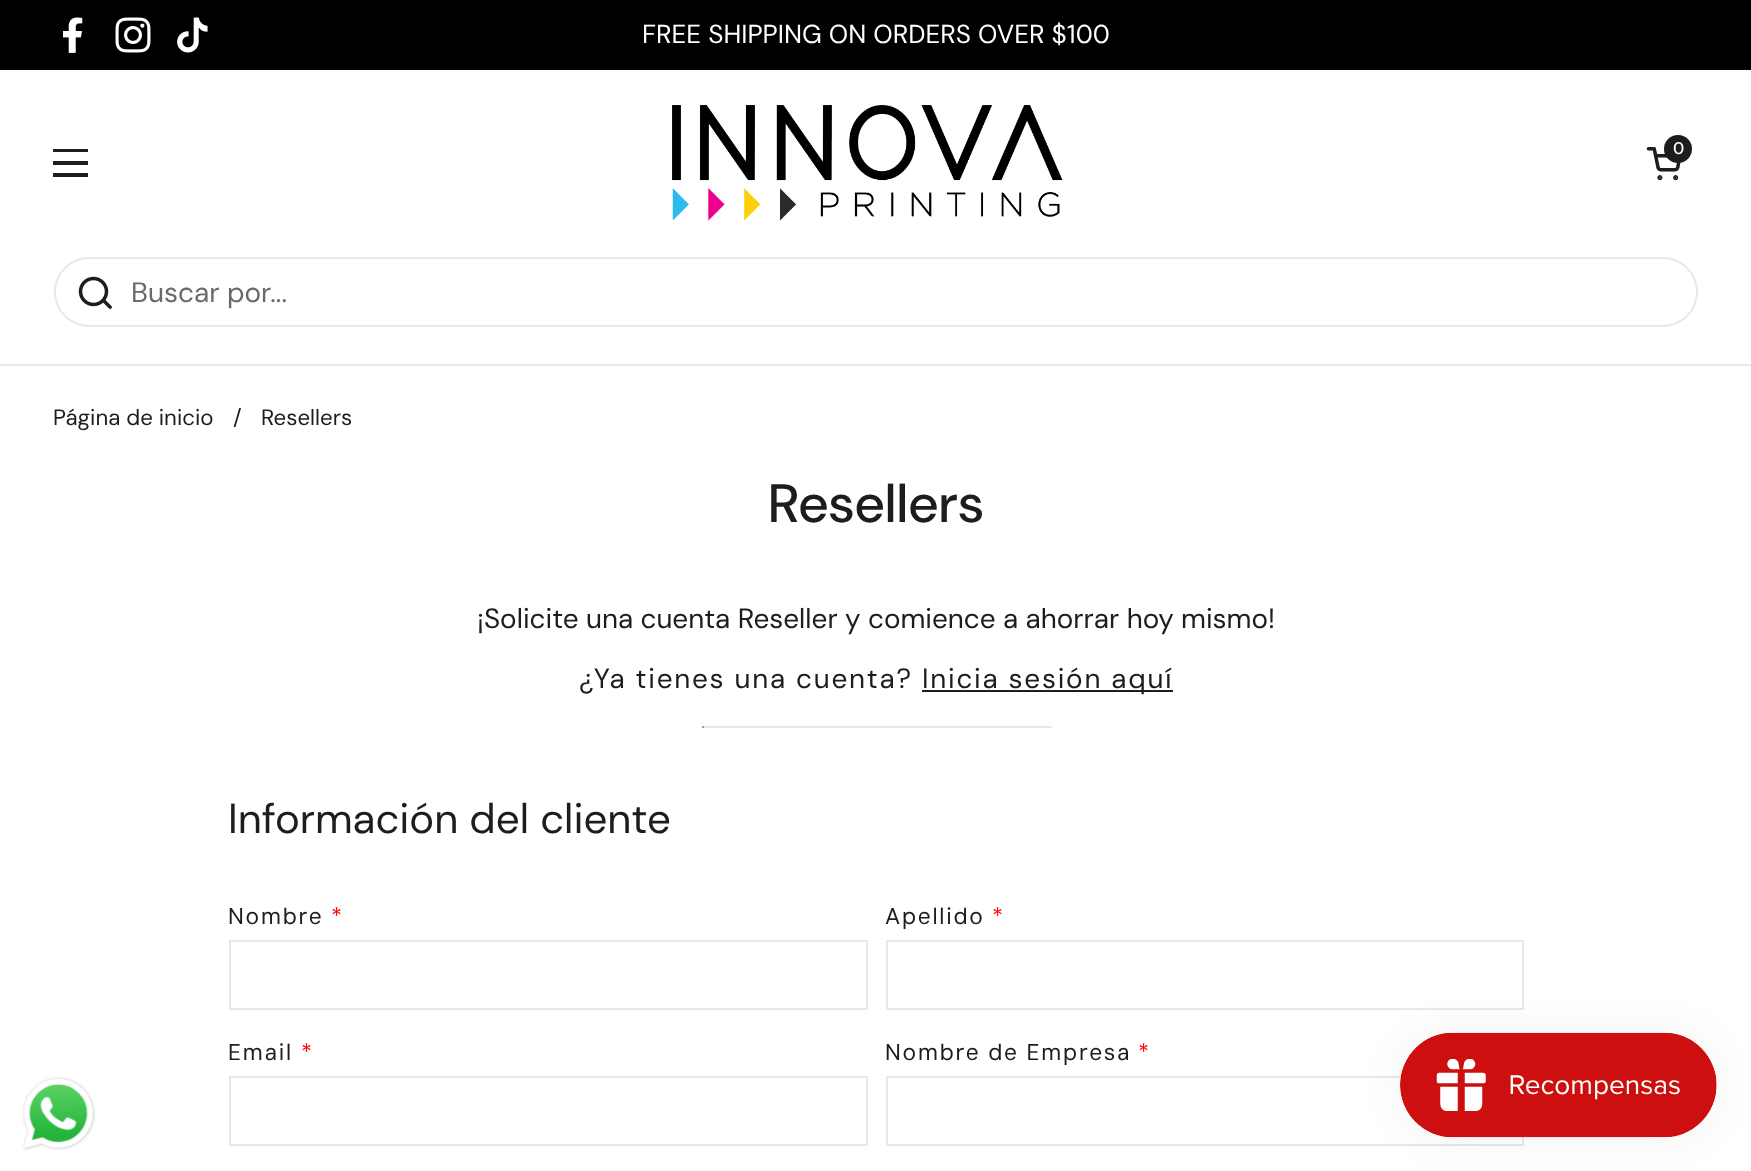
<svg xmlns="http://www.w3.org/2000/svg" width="1751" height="1171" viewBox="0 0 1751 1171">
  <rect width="100%" height="100%" fill="#fff"/>
  <path d="M0 0h1751v70H0z" fill="#000"/>
  <image x="63" y="17" width="20" height="36" href="img/1.png"/>
  <image x="115" y="17" width="36" height="36" href="img/2.png"/>
  <image x="177" y="17" width="31" height="36" href="img/3.png"/>
  <path d="M53 149h35v3H53z" fill="#1d1d1d"/>
  <path d="M53 161h35v4H53z" fill="#1d1d1d"/>
  <path d="M53 173h35v4H53z" fill="#1d1d1d"/>
  <image x="672" y="105" width="391" height="116" href="img/4.png"/>
  <image x="1646" y="147" width="35" height="34" href="img/5.png"/>
  <circle cx="1678" cy="149" r="14" fill="#1d1d1d"/>
  <path d="M0 364h1751v2H0z" fill="#e8e8e8"/>
  <rect x="55" y="258" width="1642" height="68" rx="34" fill="none" stroke="#e8e8e8" stroke-width="2"/>
  <image x="78" y="276" width="34" height="33" href="img/6.png"/>
  <path d="M922 690h251v2H922z" fill="#1d1d1d"/>
  <path d="M702 726h350v2H702z" fill="#e8e8e8"/>
  <path d="M702 726h2v2H702z" fill="#9b9b9b"/>
  <path d="M230 941h637v68H230z" fill="none" stroke="#e8e8e8" stroke-width="2"/>
  <path d="M887 941h636v68H887z" fill="none" stroke="#e8e8e8" stroke-width="2"/>
  <path d="M230 1077h637v68H230z" fill="none" stroke="#e8e8e8" stroke-width="2"/>
  <path d="M887 1077h636v68H887z" fill="none" stroke="#e8e8e8" stroke-width="2"/>
  <rect x="1400" y="1033" width="317" height="105" rx="52.5" fill="#0000000d" filter="blur(22px)"/>
  <image x="1400" y="1032" width="317" height="106" href="img/7.png"/>
  <image x="22" y="1076" width="74" height="75" href="img/8.png"/>
  <text x="642" y="43" font-family="DM Sans" font-size="26" fill="#fff">FREE SHIPPING ON ORDERS OVER $100</text>
  <text x="1673" y="154" font-family="'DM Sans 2'" font-size="17" font-weight="500" fill="#fff">0</text>
  <text x="131" y="302" font-family="'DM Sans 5'" font-size="28" fill="#6a6a6a">Buscar por...</text>
  <g font-family="'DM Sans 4'" font-size="22.25" fill="#1d1d1d">
    <text x="53" y="425">Página de inicio</text>
    <text x="233" y="425">/</text>
    <text x="261" y="425">Resellers</text>
  </g>
  <text x="768" y="522" font-family="DM Sans" font-size="54" font-weight="500" fill="#1d1d1d">Resellers</text>
  <text x="477" y="628" font-family="'DM Sans 2'" font-size="27.9" fill="#1d1d1d">¡Solicite una cuenta Reseller y comience a ahorrar hoy mismo!</text>
  <g font-family="'DM Sans 2'" font-size="27.9" letter-spacing="1.75" fill="#1d1d1d">
    <text x="579" y="688">¿Ya tienes una cuenta?</text>
    <text x="922" y="688">Inicia sesión aquí</text>
  </g>
  <text x="228" y="833" font-family="'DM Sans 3'" font-size="42" fill="#1d1d1d">Información del cliente</text>
  <text x="228" y="924" font-family="DM Sans" font-size="22.75" letter-spacing="1.75" fill="#1d1d1d">Nombre</text>
  <text x="331" y="924" font-family="DM Sans" font-size="22.75" letter-spacing="1.75" fill="#f00">*</text>
  <text x="885" y="924" font-family="DM Sans" font-size="22.75" letter-spacing="1.75" fill="#1d1d1d">Apellido</text>
  <text x="992" y="924" font-family="DM Sans" font-size="22.75" letter-spacing="1.75" fill="#f00">*</text>
  <text x="228" y="1060" font-family="DM Sans" font-size="22.75" letter-spacing="1.75" fill="#1d1d1d">Email</text>
  <text x="301" y="1060" font-family="DM Sans" font-size="22.75" letter-spacing="1.75" fill="#f00">*</text>
  <text x="885" y="1060" font-family="DM Sans" font-size="22.75" letter-spacing="1.75" fill="#1d1d1d">Nombre de Empresa</text>
  <text x="1138" y="1060" font-family="DM Sans" font-size="22.75" letter-spacing="1.75" fill="#f00">*</text>
</svg>
